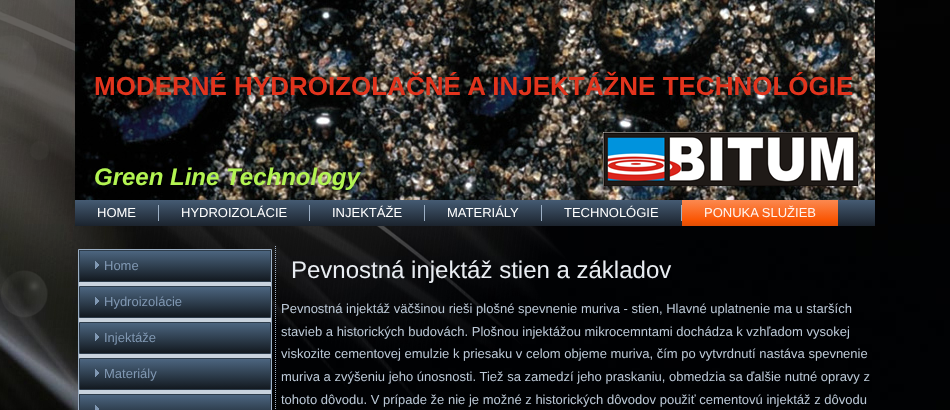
<svg xmlns="http://www.w3.org/2000/svg" width="950" height="410" viewBox="0 0 950 410">
  <defs>
    <linearGradient id="g1" gradientUnits="userSpaceOnUse" x1="475" y1="200" x2="475" y2="226"><stop offset="0" stop-color="#455b73"/><stop offset="1" stop-color="#1b232d"/></linearGradient>
    <linearGradient id="g2" gradientUnits="userSpaceOnUse" x1="760" y1="200" x2="760" y2="226"><stop offset="0" stop-color="#fb8950"/><stop offset="0.75" stop-color="#fa5705"/><stop offset="1" stop-color="#e14e05"/></linearGradient>
    <linearGradient id="g3" gradientUnits="userSpaceOnUse" x1="175" y1="250" x2="175" y2="282"><stop offset="0" stop-color="#4e6883"/><stop offset="1" stop-color="#11171d"/></linearGradient>
    <linearGradient id="g4" gradientUnits="userSpaceOnUse" x1="175" y1="286" x2="175" y2="318"><stop offset="0" stop-color="#4e6883"/><stop offset="1" stop-color="#11171d"/></linearGradient>
    <linearGradient id="g5" gradientUnits="userSpaceOnUse" x1="175" y1="322" x2="175" y2="354"><stop offset="0" stop-color="#4e6883"/><stop offset="1" stop-color="#11171d"/></linearGradient>
    <linearGradient id="g6" gradientUnits="userSpaceOnUse" x1="175" y1="358" x2="175" y2="390"><stop offset="0" stop-color="#4e6883"/><stop offset="1" stop-color="#11171d"/></linearGradient>
    <linearGradient id="g7" gradientUnits="userSpaceOnUse" x1="175" y1="394" x2="175" y2="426"><stop offset="0" stop-color="#4e6883"/><stop offset="1" stop-color="#11171d"/></linearGradient>
  </defs>
  <rect width="100%" height="100%" fill="#fff"/>
  <image x="0" y="0" width="950" height="410" href="img/1.png"/>
  <image x="75" y="0" width="800" height="200" href="img/2.png"/>
  <path d="M75 200h800v26H75z" fill="url(#g1)"/>
  <path d="M158 205h1v16H158z" fill="#9cafc4"/>
  <path d="M309 205h1v16H309z" fill="#9cafc4"/>
  <path d="M424 205h1v16H424z" fill="#9cafc4"/>
  <path d="M541 205h1v16H541z" fill="#9cafc4"/>
  <path d="M681 205h1v16H681z" fill="#9cafc4"/>
  <path d="M682 200h156v26H682z" fill="url(#g2)"/>
  <path d="M275.5 246V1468" fill="none" stroke="#a3b4c8" stroke-dasharray="1 1"/>
  <path d="M79 282h192v112H79z" fill="#c9d3de"/>
  <path d="M78.5 249.5h193v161H78.5z" fill="none" stroke="#9cafc4"/>
  <path d="M80 251h190v30H80z" fill="url(#g3)"/>
  <path d="M79.5 250.5h191v31H79.5z" fill="none" stroke="#2e3d4c"/>
  <image x="95" y="261" width="4" height="8" href="img/3.png"/>
  <path d="M80 287h190v30H80z" fill="url(#g4)"/>
  <path d="M79.5 286.5h191v31H79.5z" fill="none" stroke="#2e3d4c"/>
  <image x="95" y="297" width="4" height="8" href="img/3.png"/>
  <path d="M80 323h190v30H80z" fill="url(#g5)"/>
  <path d="M79.5 322.5h191v31H79.5z" fill="none" stroke="#2e3d4c"/>
  <image x="95" y="333" width="4" height="8" href="img/3.png"/>
  <path d="M80 359h190v30H80z" fill="url(#g6)"/>
  <path d="M79.5 358.5h191v31H79.5z" fill="none" stroke="#2e3d4c"/>
  <image x="95" y="369" width="4" height="8" href="img/3.png"/>
  <path d="M80 395h190v15H80z" fill="url(#g7)"/>
  <path d="M79.5 394.5h191v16H79.5z" fill="none" stroke="#2e3d4c"/>
  <image x="95" y="405" width="4" height="5" href="img/4.png"/>
  <text x="94" y="95" font-family="Liberation Sans" font-size="26" font-weight="bold" fill="#e2341d">MODERNÉ HYDROIZOLAČNÉ A INJEKTÁŽNE TECHNOLÓGIE</text>
  <text x="94" y="185" font-family="Liberation Sans" font-size="24" font-weight="bold" font-style="italic" fill="#b3f452">Green Line Technology</text>
  <g font-family="Liberation Sans" font-size="13" fill="#fff">
    <text x="97" y="217">HOME</text>
    <text x="181" y="217">HYDROIZOLÁCIE</text>
    <text x="332" y="217">INJEKTÁŽE</text>
    <text x="447" y="217">MATERIÁLY</text>
    <text x="564" y="217">TECHNOLÓGIE</text>
  </g>
  <text x="704" y="217" font-family="Liberation Sans" font-size="13" fill="#fff5f0">PONUKA SLUŽIEB</text>
  <g font-family="Liberation Sans" font-size="13" fill="#8098b3">
    <text x="104" y="270">Home</text>
    <text x="104" y="306">Hydroizolácie</text>
    <text x="104" y="342">Injektáže</text>
    <text x="104" y="378">Materiály</text>
  </g>
  <text x="291" y="278" font-family="Liberation Sans" font-size="24" fill="#e9edf2">Pevnostná injektáž stien a základov</text>
  <g font-family="Liberation Sans" font-size="13" fill="#bcc9d7">
    <text x="281" y="313">Pevnostná injektáž väčšinou rieši plošné spevnenie muriva - stien, Hlavné uplatnenie ma u starších</text>
    <text x="281" y="336">stavieb a historických budovách. Plošnou injektážou mikrocemntami dochádza k vzhľadom vysokej</text>
    <text x="281" y="358">viskozite cementovej emulzie k priesaku v celom objeme muriva, čím po vytvrdnutí nastáva spevnenie</text>
    <text x="281" y="381">muriva a zvýšeniu jeho únosnosti. Tiež sa zamedzí jeho praskaniu, obmedzia sa ďalšie nutné opravy z</text>
    <text x="281" y="404">tohoto dôvodu. V prípade že nie je možné z historických dôvodov použiť cementovú injektáž z dôvodu</text>
  </g>
</svg>
